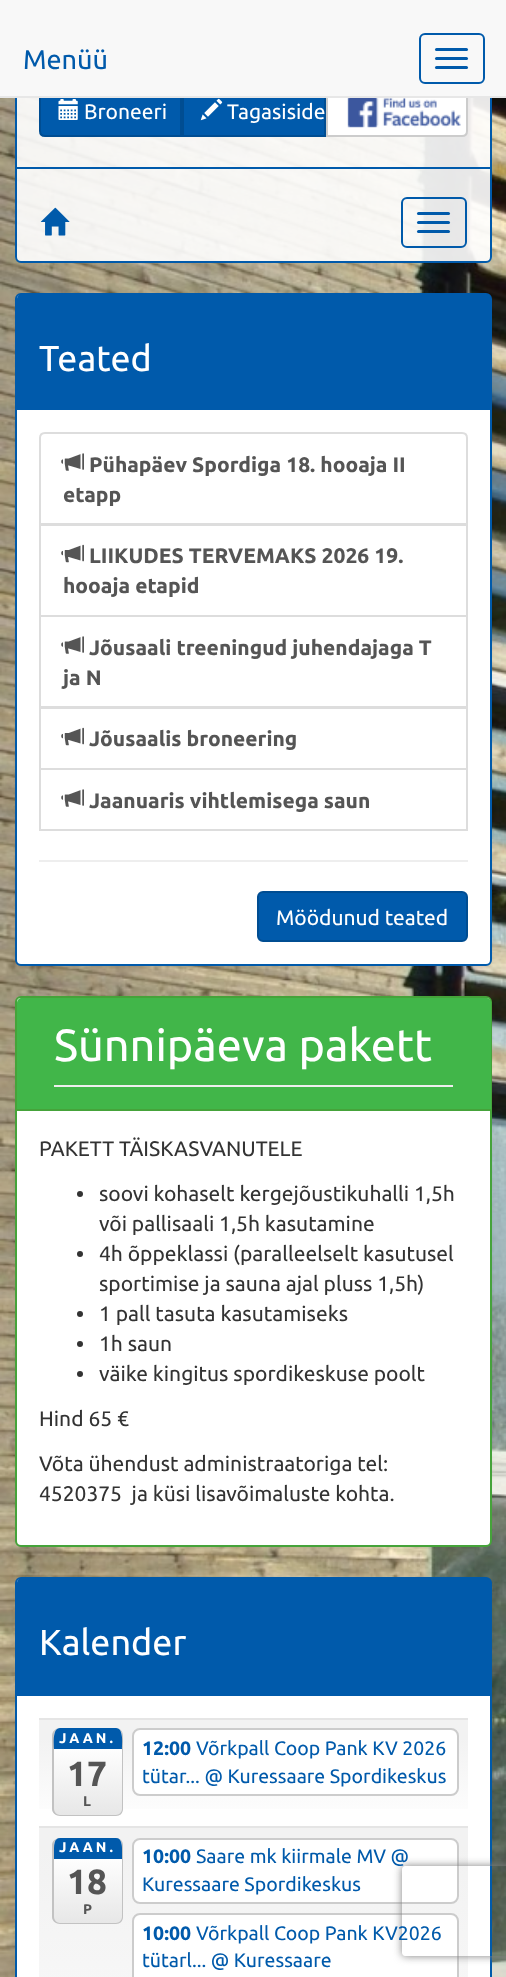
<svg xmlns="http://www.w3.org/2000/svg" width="506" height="1977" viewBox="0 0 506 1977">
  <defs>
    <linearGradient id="g1" gradientUnits="userSpaceOnUse" x1="254" y1="1719" x2="254" y2="1826"><stop offset="0" stop-color="#f2f2f2"/><stop offset="0.18" stop-color="#f2f2f2"/><stop offset="1" stop-color="#fff"/></linearGradient>
    <clipPath id="clip1"><rect x="53" y="1728" width="70" height="89" rx="8"/></clipPath>
    <linearGradient id="g2" gradientUnits="userSpaceOnUse" x1="88" y1="1728" x2="88" y2="1815"><stop offset="0" stop-color="#fff"/><stop offset="0.2" stop-color="#fff"/><stop offset="1" stop-color="#e7e7e7"/></linearGradient>
    <linearGradient id="g3" gradientUnits="userSpaceOnUse" x1="253" y1="1827" x2="254" y2="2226"><stop offset="0" stop-color="#f2f2f2"/><stop offset="0.05" stop-color="#f2f2f2"/><stop offset="1" stop-color="#fff"/></linearGradient>
    <clipPath id="clip2"><rect x="53" y="1838" width="70" height="87" rx="8"/></clipPath>
    <linearGradient id="g4" gradientUnits="userSpaceOnUse" x1="88" y1="1838" x2="88" y2="1923"><stop offset="0" stop-color="#fff"/><stop offset="0.21" stop-color="#fff"/><stop offset="1" stop-color="#e7e7e7"/></linearGradient>
    <clipPath id="clip3"><path d="M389 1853H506V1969H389ZM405 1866H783C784.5 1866 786 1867.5 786 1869V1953C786 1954.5 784.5 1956 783 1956H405C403.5 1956 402 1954.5 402 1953V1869C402 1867.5 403.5 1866 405 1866Z" clip-rule="evenodd"/></clipPath>
  </defs>
  <rect width="100%" height="100%" fill="#fff"/>
  <image x="0" y="98" width="506" height="1879" href="img/1.png"/>
  <image x="15" y="98" width="477" height="163" href="img/2.png"/>
  <rect x="16" y="-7" width="475" height="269" rx="5" fill="none" stroke="#005aab" stroke-width="2"/>
  <path d="M45 87H181V136H45C42 136 40 134 40 131V92C40 89 42 87 45 87Z" fill="#005aab" stroke="#004d92" stroke-width="2"/>
  <path d="M184 98h140v37H184z" fill="#005aab"/>
  <path d="M183 87h142v49H183z" fill="none" stroke="#004d92" stroke-width="2"/>
  <path d="M327 87H462C465 87 467 89 467 92V131C467 134 465 136 462 136H327Z" fill="#fff" stroke="#ccc" stroke-width="2"/>
  <path d="M0 0h506v96H0z" fill="#f8f8f8"/>
  <path d="M0 96h506v2H0z" fill="#e7e7e7"/>
  <rect x="420" y="34" width="64" height="49" rx="5" fill="none" stroke="#005aab" stroke-width="2"/>
  <rect x="435" y="48" width="33" height="3" rx="1.5" fill="#005aab"/>
  <rect x="435" y="57" width="33" height="3" rx="1.5" fill="#005aab"/>
  <rect x="435" y="66" width="33" height="3" rx="1.5" fill="#005aab"/>
  <image x="58" y="99" width="20" height="21" href="img/3.png"/>
  <image x="200" y="98" width="23" height="23" href="img/4.png"/>
  <image x="347" y="98" width="114" height="30" href="img/5.png"/>
  <path d="M17 167h474v2H17z" fill="#005aab"/>
  <image x="40" y="207" width="30" height="29" href="img/6.png"/>
  <rect x="402" y="198" width="64" height="49" rx="5" fill="none" stroke="#005aaa" stroke-width="2"/>
  <rect x="417" y="212" width="33" height="3" rx="1.5" fill="#005aaa"/>
  <rect x="417" y="221" width="33" height="3" rx="1.5" fill="#005aaa"/>
  <rect x="417" y="230" width="33" height="3" rx="1.5" fill="#005aaa"/>
  <rect x="15" y="294" width="477" height="674" rx="6" fill="#0000000d" filter="blur(1px)"/>
  <rect x="16" y="294" width="475" height="671" rx="5" fill="#fff" stroke="#005aab" stroke-width="2"/>
  <path d="M22 294H486C489 294 491 296 491 299V410H17V299C17 296 19 294 22 294Z" fill="#005aab"/>
  <path d="M45 433H462C465 433 467 435 467 438V524H40V438C40 435 42 433 45 433Z" fill="none" stroke="#ddd" stroke-width="2"/>
  <image x="61" y="453" width="23" height="18" href="img/7.png"/>
  <path d="M40 525h427v91H40z" fill="none" stroke="#ddd" stroke-width="2"/>
  <image x="61" y="544" width="23" height="19" href="img/8.png"/>
  <path d="M40 616h427v91H40z" fill="none" stroke="#ddd" stroke-width="2"/>
  <image x="61" y="636" width="23" height="18" href="img/7.png"/>
  <path d="M40 708h427v61H40z" fill="none" stroke="#ddd" stroke-width="2"/>
  <image x="61" y="727" width="23" height="19" href="img/8.png"/>
  <path d="M40 769h427v61H40z" fill="none" stroke="#ddd" stroke-width="2"/>
  <image x="61" y="789" width="23" height="18" href="img/7.png"/>
  <path d="M39 860h429v2H39z" fill="#eee"/>
  <rect x="258" y="892" width="209" height="49" rx="5" fill="#005aab" stroke="#004d92" stroke-width="2"/>
  <rect x="15" y="998" width="477" height="550" rx="6" fill="#0000000d" filter="blur(1px)"/>
  <rect x="16" y="997" width="475" height="549" rx="5" fill="#fff" stroke="#45a33a" stroke-width="2"/>
  <path d="M22 998H486C489 998 491 1000 491 1003V1110H17V1003C17 1000 19 998 22 998Z" fill="#41b649"/>
  <path d="M17 1109h474v2H17z" fill="#45a33a"/>
  <path d="M54 1085h399v2H54z" fill="#eee"/>
  <circle cx="80" cy="1194" r="3" fill="#333"/>
  <circle cx="80" cy="1254" r="3" fill="#333"/>
  <circle cx="80" cy="1314" r="3" fill="#333"/>
  <circle cx="80" cy="1344" r="3" fill="#333"/>
  <circle cx="80" cy="1374" r="3" fill="#333"/>
  <rect x="16" y="1578" width="475" height="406" rx="5" fill="#fff" stroke="#005aab" stroke-width="2"/>
  <path d="M22 1578H486C489 1578 491 1580 491 1583V1695H17V1583C17 1580 19 1578 22 1578Z" fill="#005aab"/>
  <path d="M17 1695h474v1H17z" fill="#005aab"/>
  <path d="M39 1720h429v89H39z" fill="url(#g1)"/>
  <path d="M39 1718h429v2H39z" fill="#e5e5e5"/>
  <g clip-path="url(#clip1)">
    <path d="M54 1728h68v87H54z" fill="url(#g2)"/>
  </g>
  <path d="M60 1728H116C120 1728 123 1731 123 1736V1809C123 1813 120 1816 116 1816H60C56 1816 52 1813 52 1809V1736C52 1731 56 1728 60 1728ZM60 1728H116C119 1728 122 1731 122 1736V1809C122 1812 119 1815 116 1815H60C57 1815 54 1812 54 1809V1736C54 1731 57 1728 60 1728Z" fill="#c2c2c2" fill-rule="evenodd"/>
  <path d="M60 1728C52 1728 54 1744 54 1749H122C122 1744 124 1728 116 1728Z" fill="#005aab"/>
  <rect x="133" y="1729" width="325" height="66" rx="7" fill="#fff" stroke="#ccc" stroke-width="2"/>
  <path d="M39 1828h429v149H39z" fill="url(#g3)"/>
  <path d="M39 1826h429v2H39z" fill="#e5e5e5"/>
  <g clip-path="url(#clip2)">
    <path d="M54 1838h68v85H54z" fill="url(#g4)"/>
  </g>
  <path d="M60 1838H116C120 1838 123 1841 123 1845V1917C123 1921 120 1924 116 1924H60C56 1924 52 1921 52 1917V1845C52 1841 56 1838 60 1838ZM60 1838H116C119 1838 122 1841 122 1845V1917C122 1920 119 1923 116 1923H60C57 1923 54 1920 54 1917V1845C54 1841 57 1838 60 1838Z" fill="#c2c2c2" fill-rule="evenodd"/>
  <path d="M60 1838C54 1838 54 1845 54 1850V1859H122V1850C122 1846 122 1838 116 1838Z" fill="#005aab"/>
  <rect x="133" y="1839" width="325" height="64" rx="7" fill="#fff" stroke="#ccc" stroke-width="2"/>
  <rect x="133" y="1914" width="325" height="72" rx="7" fill="#fff" stroke="#ccc" stroke-width="2"/>
  <g clip-path="url(#clip3)">
    <rect x="402" y="1866" width="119" height="90" rx="3" fill="#808080" filter="blur(4px)"/>
  </g>
  <text x="23" y="69" font-family="Ubuntu" font-size="27" fill="#005aab">Menüü</text>
  <g font-family="Ubuntu" font-size="21" fill="#fff">
    <text x="84" y="119">Broneeri</text>
    <text x="227" y="119">Tagasiside</text>
  </g>
  <text x="39" y="371" font-family="Ubuntu" font-size="36" fill="#fff">Teated</text>
  <g font-family="Ubuntu" font-size="21" font-weight="bold" fill="#555">
    <text x="89" y="472">Pühapäev Spordiga 18. hooaja II</text>
    <text x="63" y="502">etapp</text>
    <text x="89" y="563">LIIKUDES TERVEMAKS 2026 19.</text>
    <text x="63" y="593">hooaja etapid</text>
    <text x="89" y="655">Jõusaali treeningud juhendajaga T</text>
    <text x="63" y="685">ja N</text>
    <text x="89" y="746">Jõusaalis broneering</text>
    <text x="89" y="808">Jaanuaris vihtlemisega saun</text>
  </g>
  <text x="276" y="925" font-family="Ubuntu" font-size="21" fill="#fff">Möödunud teated</text>
  <text x="54" y="1061" font-family="Ubuntu" font-size="45" fill="#fff">Sünnipäeva pakett</text>
  <g font-family="Ubuntu" font-size="21" fill="#333">
    <text x="39" y="1156">PAKETT TÄISKASVANUTELE</text>
    <text x="99" y="1201">soovi kohaselt kergejõustikuhalli 1,5h</text>
    <text x="99" y="1231">või pallisaali 1,5h kasutamine</text>
    <text x="99" y="1261">4h õppeklassi (paralleelselt kasutusel</text>
    <text x="99" y="1291">sportimise ja sauna ajal pluss 1,5h)</text>
    <text x="99" y="1321">1 pall tasuta kasutamiseks</text>
    <text x="99" y="1351">1h saun</text>
    <text x="99" y="1381">väike kingitus spordikeskuse poolt</text>
    <text x="39" y="1426">Hind 65 €</text>
    <text x="39" y="1471">Võta ühendust administraatoriga tel:</text>
    <text x="39" y="1501" xml:space="preserve">4520375  ja küsi lisavõimaluste kohta.</text>
  </g>
  <text x="39" y="1655" font-family="Ubuntu" font-size="36" fill="#fff">Kalender</text>
  <text x="59" y="1743" font-family="Ubuntu" font-size="14" font-weight="bold" letter-spacing="3" fill="#fff">JAAN.</text>
  <text x="67" y="1786" font-family="Ubuntu" font-size="35" font-weight="bold" fill="#555">17</text>
  <text x="83" y="1806" font-family="Ubuntu" font-size="14" font-weight="bold" fill="#555">L</text>
  <text x="142" y="1755" font-family="Ubuntu" font-size="19.5" font-weight="bold" fill="#005aab">12:00</text>
  <g font-family="Ubuntu" font-size="19.5" fill="#005aab">
    <text x="196" y="1755">Võrkpall Coop Pank KV 2026</text>
    <text x="142" y="1783">tütar... @ Kuressaare Spordikeskus</text>
  </g>
  <text x="59" y="1852" font-family="Ubuntu" font-size="14" font-weight="bold" letter-spacing="3" fill="#fff">JAAN.</text>
  <text x="67" y="1894" font-family="Ubuntu" font-size="35" font-weight="bold" fill="#555">18</text>
  <text x="83" y="1914" font-family="Ubuntu" font-size="14" font-weight="bold" fill="#555">P</text>
  <text x="142" y="1863" font-family="Ubuntu" font-size="19.5" font-weight="bold" fill="#005aab">10:00</text>
  <g font-family="Ubuntu" font-size="19.5" fill="#005aab">
    <text x="196" y="1863">Saare mk kiirmale MV @</text>
    <text x="142" y="1891">Kuressaare Spordikeskus</text>
  </g>
  <text x="142" y="1940" font-family="Ubuntu" font-size="19.5" font-weight="bold" fill="#005aab">10:00</text>
  <g font-family="Ubuntu" font-size="19.5" fill="#005aab">
    <text x="196" y="1940">Võrkpall Coop Pank KV2026</text>
    <text x="142" y="1967">tütarl... @ Kuressaare</text>
  </g>
</svg>
